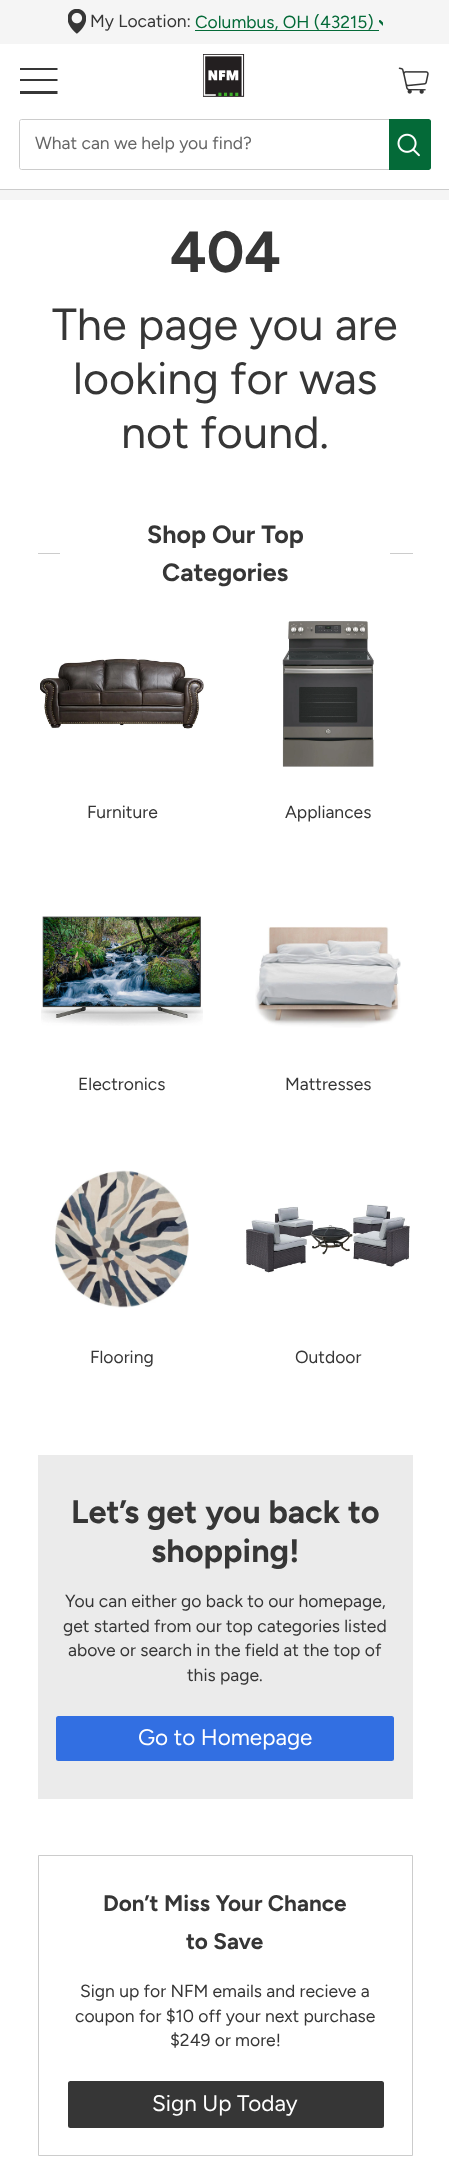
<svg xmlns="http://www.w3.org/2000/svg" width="449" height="2170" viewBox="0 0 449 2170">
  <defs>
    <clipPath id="clip1"><path d="M20 68h38v26H20z"/></clipPath>
  </defs>
  <rect width="100%" height="100%" fill="#fff"/>
  <path d="M0 0h449v44H0z" fill="#f5f5f5"/>
  <image x="68" y="9" width="18" height="25" href="img/1.png"/>
  <path d="M195 30h184v1H195z" fill="#046a38"/>
  <image x="379" y="20" width="4" height="6" href="img/2.png"/>
  <path d="M0 189h449v1H0z" fill="#ccc"/>
  <g clip-path="url(#clip1)">
    <path d="M20 67.5H57.5V70H20ZM20 79H57.5V81H20ZM20 91H57.5V94H20Z" fill="#363636"/>
  </g>
  <image x="203" y="54" width="42" height="43" href="img/3.png"/>
  <image x="398" y="67" width="31" height="27" href="img/4.png"/>
  <path d="M21.5 119.5H389.5V169.5H21.5C20.5 169.5 19.5 168.5 19.5 167.5V121.5C19.5 120.5 20.5 119.5 21.5 119.5Z" fill="none" stroke="#ccc"/>
  <path d="M389 119H428.5C430 119 431 120 431 121.5V167.5C431 169 430 170 428.5 170H389Z" fill="#046a38"/>
  <image x="397" y="133" width="23" height="24" href="img/5.png"/>
  <path d="M0 190h449v10H0z" fill="#f5f5f5"/>
  <path d="M38 553h22v1H38z" fill="#ccc"/>
  <path d="M390 553h23v1H390z" fill="#ccc"/>
  <image x="40" y="658" width="164" height="71" href="img/6.png"/>
  <image x="282" y="621" width="92" height="146" href="img/7.png"/>
  <image x="41" y="916" width="162" height="110" href="img/8.png"/>
  <image x="255" y="926" width="146" height="102" href="img/9.png"/>
  <image x="55" y="1170" width="134" height="138" href="img/10.png"/>
  <image x="246" y="1204" width="164" height="69" href="img/11.png"/>
  <path d="M38 1455h375v344H38z" fill="#ebebeb"/>
  <rect x="57.5" y="1717.5" width="335" height="42" rx="1" fill="#326fe2" stroke="#326fe2" stroke-width="3"/>
  <path d="M38.5 1855.5h374v300H38.5z" fill="none" stroke="#ccc"/>
  <rect x="69.5" y="2082.5" width="313" height="44" rx="1" fill="#363636" stroke="#363636" stroke-width="3"/>
  <text x="90" y="27" font-family="'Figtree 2'" font-size="17.5" font-weight="300" fill="#363636">My Location:</text>
  <text x="195" y="28" font-family="'Figtree 2'" font-size="17.5" font-weight="300" fill="#046a38">Columbus, OH (43215)</text>
  <text x="35" y="149" font-family="'Figtree 2'" font-size="17.5" font-weight="300" fill="#666">What can we help you find?</text>
  <text x="170" y="272" font-family="Figtree" font-size="58" font-weight="300" fill="#363636">404</text>
  <g font-family="'Figtree 2'" font-size="45" font-weight="300" fill="#363636">
    <text x="52" y="340">The page you are</text>
    <text x="73" y="394">looking for was</text>
    <text x="121" y="448">not found.</text>
  </g>
  <g font-family="Figtree" font-size="25" font-weight="300" fill="#363636">
    <text x="147" y="543">Shop Our Top</text>
    <text x="162" y="581">Categories</text>
  </g>
  <g font-family="'Figtree 2'" font-size="17.5" font-weight="300" fill="#363636">
    <text x="87" y="818">Furniture</text>
    <text x="285" y="818">Appliances</text>
    <text x="78" y="1090">Electronics</text>
    <text x="285" y="1090">Mattresses</text>
    <text x="90" y="1363">Flooring</text>
    <text x="295" y="1363">Outdoor</text>
  </g>
  <g font-family="Figtree" font-size="32.5" font-weight="300" fill="#363636">
    <text x="71" y="1523">Let’s get you back to</text>
    <text x="151" y="1562">shopping!</text>
  </g>
  <g font-family="'Figtree 2'" font-size="17.5" font-weight="300" fill="#363636">
    <text x="65" y="1607">You can either go back to our homepage,</text>
    <text x="63" y="1632">get started from our top categories listed</text>
    <text x="68" y="1656">above or search in the field at the top of</text>
    <text x="187" y="1681">this page.</text>
  </g>
  <text x="138" y="1745" font-family="'Figtree 2'" font-size="22.5" font-weight="300" fill="#fff">Go to Homepage</text>
  <g font-family="Figtree" font-size="22.5" font-weight="300" fill="#363636">
    <text x="103" y="1911">Don’t Miss Your Chance</text>
    <text x="186" y="1949">to Save</text>
  </g>
  <g font-family="'Figtree 2'" font-size="17.5" font-weight="300" fill="#363636">
    <text x="80" y="1997">Sign up for NFM emails and recieve a</text>
    <text x="75" y="2022">coupon for $10 off your next purchase</text>
    <text x="170" y="2046">$249 or more!</text>
  </g>
  <text x="152" y="2111" font-family="'Figtree 2'" font-size="22.5" font-weight="300" fill="#fff">Sign Up Today</text>
</svg>
